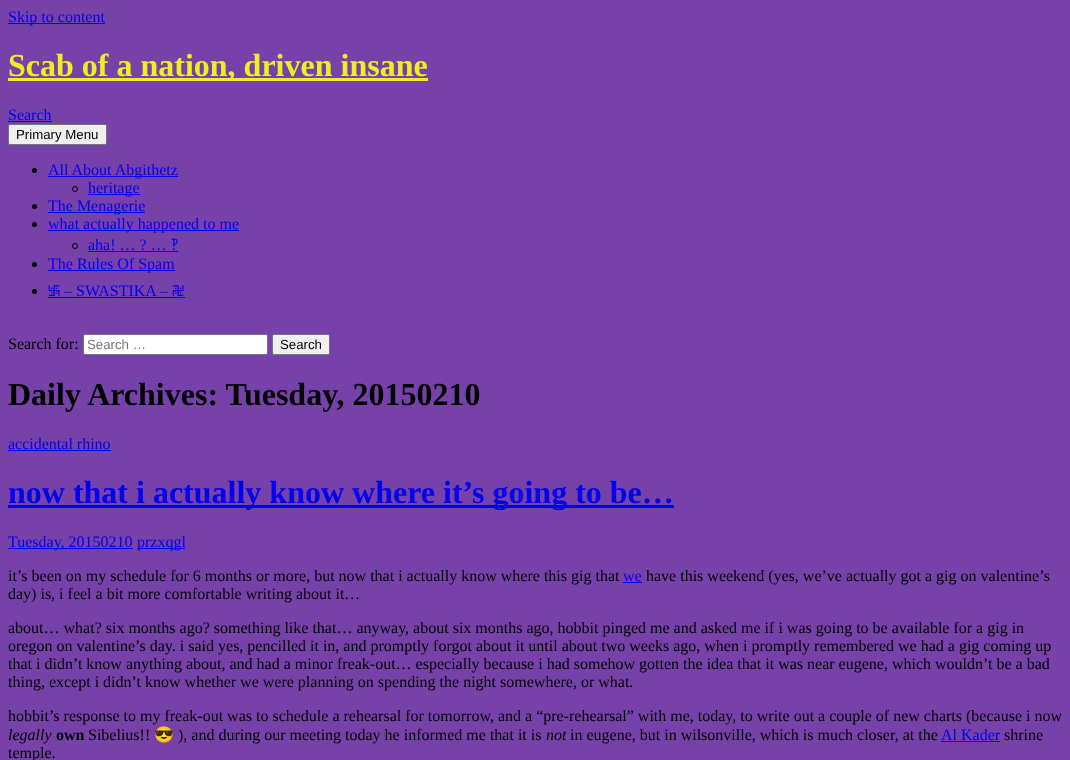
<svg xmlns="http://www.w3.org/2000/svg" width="1070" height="760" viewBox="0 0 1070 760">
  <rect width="100%" height="100%" fill="#7641a8"/>
  <path d="M8 23h97v1H8z" fill="#00e"/>
  <path d="M8 78h420v3H8z" fill="#ee2"/>
  <path d="M8 121h44v1H8z" fill="#00e"/>
  <rect x="8.5" y="124.5" width="98" height="20" rx="1.5" fill="#efefef" stroke="#767676"/>
  <circle cx="34.5" cy="170.5" r="2.5" fill="#000"/>
  <path d="M48 176h130v1H48z" fill="#00e"/>
  <circle cx="75" cy="189" r="2.5" fill="none" stroke="#000"/>
  <path d="M88 194h52v1H88z" fill="#00e"/>
  <circle cx="34.5" cy="206.5" r="2.5" fill="#000"/>
  <path d="M48 212h97v1H48z" fill="#00e"/>
  <circle cx="34.5" cy="224.5" r="2.5" fill="#000"/>
  <path d="M48 230h191v1H48z" fill="#00e"/>
  <circle cx="75" cy="246" r="2.5" fill="none" stroke="#000"/>
  <path d="M88 251h90v1H88z" fill="#00e"/>
  <circle cx="34.5" cy="264.5" r="2.5" fill="#000"/>
  <path d="M48 270h127v1H48z" fill="#00e"/>
  <circle cx="34.5" cy="291.5" r="2.5" fill="#000"/>
  <path d="M48 297h137v1H48z" fill="#00e"/>
  <rect x="83.5" y="334.5" width="184" height="20" rx="1.5" fill="#fff" stroke="#767676"/>
  <rect x="272.5" y="334.5" width="57" height="20" rx="1.5" fill="#efefef" stroke="#767676"/>
  <path d="M8 450h103v1H8z" fill="#00e"/>
  <path d="M8 505h666v3H8z" fill="#00e"/>
  <path d="M8 548h125v1H8z" fill="#00e"/>
  <path d="M137 548h48v1H137z" fill="#00e"/>
  <path d="M623 582h19v1H623z" fill="#00e"/>
  <path d="M941 741h59v1H941z" fill="#00e"/>
  <text x="8" y="22" font-family="Liberation Serif" font-size="16" fill="#00e">Skip to content</text>
  <text x="8" y="76" font-family="Liberation Serif" font-size="32" font-weight="bold" fill="#ee2">Scab of a nation, driven insane</text>
  <text x="8" y="120" font-family="Liberation Serif" font-size="16" fill="#00e">Search</text>
  <text x="16" y="139" font-family="Liberation Sans" font-size="13.25" fill="#000">Primary Menu</text>
  <g font-family="Liberation Serif" font-size="16" fill="#00e">
    <text x="48" y="175">All About Abgithetz</text>
    <text x="88" y="193">heritage</text>
    <text x="48" y="211">The Menagerie</text>
    <text x="48" y="229">what actually happened to me</text>
    <text x="88" y="250">aha! … ? …</text>
  </g>
  <text x="171" y="250" font-family="Noto Sans" font-size="16" fill="#00e">‽</text>
  <text x="48" y="269" font-family="Liberation Serif" font-size="16" fill="#00e">The Rules Of Spam</text>
  <text x="48" y="296" font-family="Noto Serif Tibetan" font-size="16" fill="#00e">࿗</text>
  <text x="64" y="296" font-family="Liberation Serif" font-size="16" fill="#00e">– SWASTIKA –</text>
  <text x="172" y="296" font-family="Noto Serif Tibetan" font-size="16" fill="#00e">࿘</text>
  <text x="8" y="349" font-family="Liberation Serif" font-size="16" fill="#000">Search for:</text>
  <text x="87" y="349" font-family="Liberation Sans" font-size="13.25" fill="#757575">Search …</text>
  <text x="280" y="349" font-family="Liberation Sans" font-size="13.25" fill="#000">Search</text>
  <text x="8" y="405" font-family="Liberation Serif" font-size="32" font-weight="bold" fill="#000">Daily Archives: Tuesday, 20150210</text>
  <text x="8" y="449" font-family="Liberation Serif" font-size="16" fill="#00e">accidental rhino</text>
  <text x="8" y="503" font-family="Liberation Serif" font-size="32" font-weight="bold" fill="#00e">now that i actually know where it’s going to be…</text>
  <g font-family="Liberation Serif" font-size="16" fill="#00e">
    <text x="8" y="547">Tuesday, 20150210</text>
    <text x="137" y="547">przxqgl</text>
  </g>
  <text x="8" y="581" font-family="Liberation Serif" font-size="16" fill="#000">it’s been on my schedule for 6 months or more, but now that i actually know where this gig that</text>
  <text x="623" y="581" font-family="Liberation Serif" font-size="16" fill="#00e">we</text>
  <g font-family="Liberation Serif" font-size="16" fill="#000">
    <text x="646" y="581">have this weekend (yes, we’ve actually got a gig on valentine’s</text>
    <text x="8" y="599">day) is, i feel a bit more comfortable writing about it…</text>
    <text x="8" y="633">about… what? six months ago? something like that… anyway, about six months ago, hobbit pinged me and asked me if i was going to be available for a gig in</text>
    <text x="8" y="651">oregon on valentine’s day. i said yes, pencilled it in, and promptly forgot about it until about two weeks ago, when i promptly remembered we had a gig coming up</text>
    <text x="8" y="669">that i didn’t know anything about, and had a minor freak-out… especially because i had somehow gotten the idea that it was near eugene, which wouldn’t be a bad</text>
    <text x="8" y="687">thing, except i didn’t know whether we were planning on spending the night somewhere, or what.</text>
    <text x="8" y="721">hobbit’s response to my freak-out was to schedule a rehearsal for tomorrow, and a “pre-rehearsal” with me, today, to write out a couple of new charts (because i now</text>
  </g>
  <text x="8" y="740" font-family="Liberation Serif" font-size="16" font-style="italic" fill="#000">legally</text>
  <text x="56" y="740" font-family="Liberation Serif" font-size="16" font-weight="bold" fill="#000">own</text>
  <text x="88" y="740" font-family="Liberation Serif" font-size="16" fill="#000">Sibelius!!</text>
  <text x="154" y="740" font-family="Noto Color Emoji" font-size="16" fill="#000">😎</text>
  <text x="178" y="740" font-family="Liberation Serif" font-size="16" fill="#000">), and during our meeting today he informed me that it is</text>
  <text x="546" y="740" font-family="Liberation Serif" font-size="16" font-style="italic" fill="#000">not</text>
  <text x="570" y="740" font-family="Liberation Serif" font-size="16" fill="#000">in eugene, but in wilsonville, which is much closer, at the</text>
  <text x="941" y="740" font-family="Liberation Serif" font-size="16" fill="#00e">Al Kader</text>
  <g font-family="Liberation Serif" font-size="16" fill="#000">
    <text x="1004" y="740">shrine</text>
    <text x="8" y="758">temple.</text>
  </g>
</svg>
